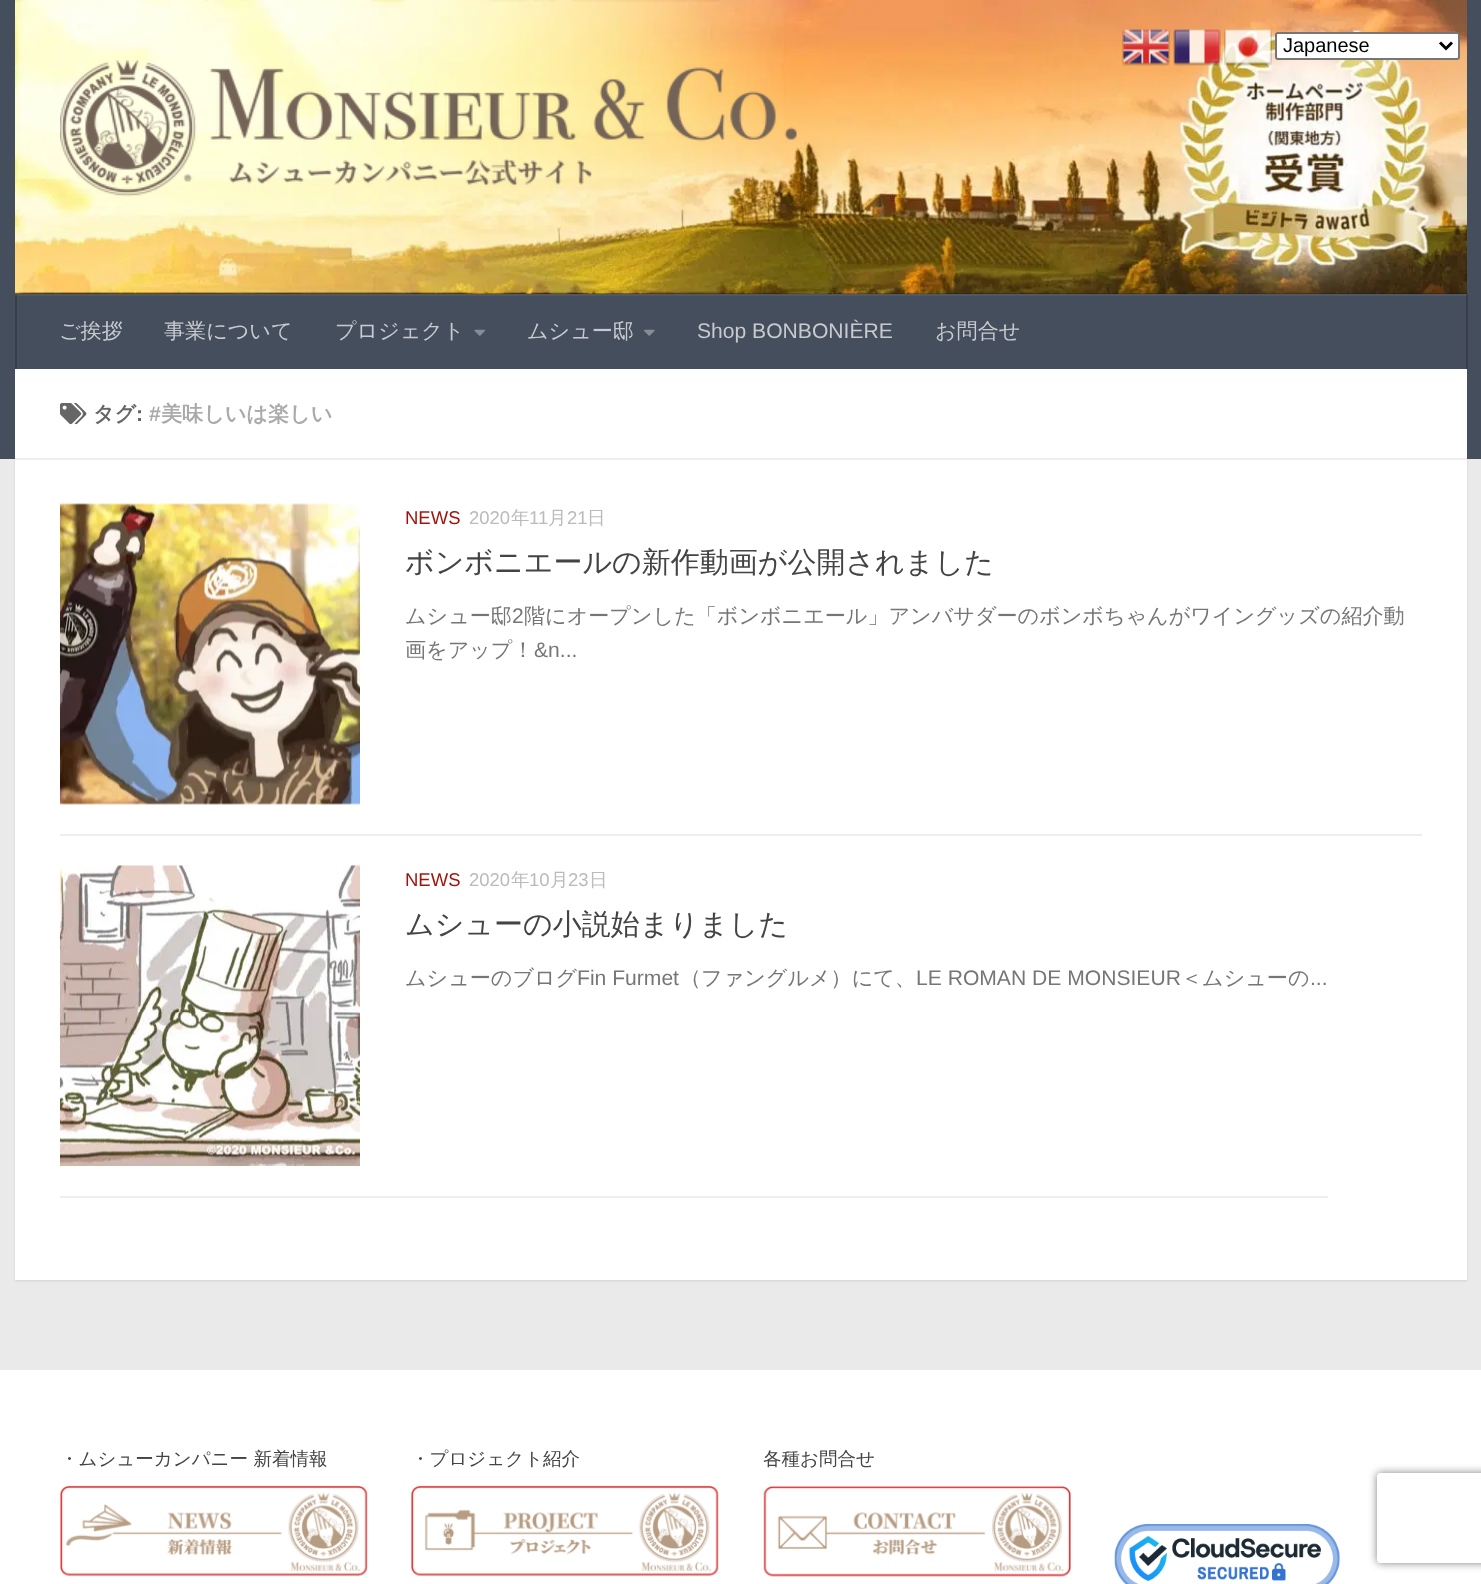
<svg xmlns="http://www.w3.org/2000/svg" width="1481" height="1584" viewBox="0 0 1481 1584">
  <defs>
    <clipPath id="clip1"><path d="M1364 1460H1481V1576H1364ZM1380 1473H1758C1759.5 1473 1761 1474.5 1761 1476V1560C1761 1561.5 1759.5 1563 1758 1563H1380C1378.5 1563 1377 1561.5 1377 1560V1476C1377 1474.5 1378.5 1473 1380 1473Z" clip-rule="evenodd"/></clipPath>
  </defs>
  <rect width="100%" height="100%" fill="#eaeaea"/>
  <path d="M15 371h1452v910H15z" fill="#0000001a" filter="blur(1px)"/>
  <path d="M0 0h1481v459H0z" fill="#454e5c"/>
  <image x="15" y="0" width="1452" height="294" href="img/4.png"/>
  <image x="1122" y="29" width="48" height="37" href="img/1.png"/>
  <image x="1173" y="29" width="48" height="37" href="img/2.png"/>
  <image x="1224" y="29" width="48" height="37" href="img/3.png"/>
  <rect x="1276" y="33" width="183" height="26" rx="2" fill="#fff" stroke="#767676" stroke-width="2"/>
  <path d="M1440 42.5L1446 48.5L1452 42.5" fill="none" stroke="#000" stroke-width="3"/>
  <path d="M15 294h1452v2H15z" fill="#4e5764"/>
  <image x="60" y="60" width="737" height="137" href="img/5.png"/>
  <path d="M15 293h1452v1H15z" fill="#00000033"/>
  <path d="M1466 294h2v75H1466z" fill="#373e4a"/>
  <path d="M1466 294h1v2H1466z" fill="#414853"/>
  <path d="M15 294h2v75H15z" fill="#373e4a"/>
  <path d="M15 294h2v2H15z" fill="#414853"/>
  <image x="474" y="329" width="12" height="7" href="img/6.png"/>
  <image x="644" y="329" width="11" height="7" href="img/7.png"/>
  <path d="M15 369h1452v911H15z" fill="#fff"/>
  <path d="M15 458h1452v2H15z" fill="#eee"/>
  <image x="60" y="403" width="27" height="22" href="img/8.png"/>
  <path d="M60 834h1362v2H60z" fill="#eee"/>
  <image x="60" y="503" width="300" height="302" href="img/9.png"/>
  <path d="M60 1196h1268v2H60z" fill="#eee"/>
  <image x="60" y="865" width="300" height="301" href="img/10.png"/>
  <path d="M0 1370h1481v214H0z" fill="#fff"/>
  <image x="60" y="1485" width="308" height="92" href="img/11.png"/>
  <image x="411" y="1485" width="308" height="92" href="img/12.png"/>
  <image x="763" y="1486" width="308" height="91" href="img/13.png"/>
  <image x="1114" y="1524" width="226" height="60" href="img/14.png"/>
  <g clip-path="url(#clip1)">
    <rect x="1377" y="1473" width="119" height="90" rx="3" fill="#808080" filter="blur(4px)"/>
  </g>
  <text x="1283" y="52" font-family="Liberation Sans" font-size="20" fill="#000">Japanese</text>
  <g font-family="WenQuanYi Zen Hei" font-size="21.1" font-weight="500" fill="#c7cace">
    <text x="59" y="338">ご挨拶</text>
    <text x="164" y="338">事業について</text>
    <text x="335" y="338">プロジェクト</text>
    <text x="527" y="338">ムシュー邸</text>
  </g>
  <text x="697" y="338" font-family="Liberation Sans" font-size="21.1" fill="#c7cace">Shop BONBONIÈRE</text>
  <text x="935" y="338" font-family="WenQuanYi Zen Hei" font-size="21.1" font-weight="500" fill="#c7cace">お問合せ</text>
  <text x="93" y="421" font-family="WenQuanYi Zen Hei" font-size="21.1" font-weight="bold" fill="#666">タグ</text>
  <text x="136" y="421" font-family="Liberation Sans" font-size="21.1" font-weight="bold" fill="#666">:</text>
  <text x="149" y="421" font-family="Liberation Sans" font-size="21.1" font-weight="bold" fill="#aaa">#</text>
  <text x="161" y="421" font-family="WenQuanYi Zen Hei" font-size="21.1" font-weight="bold" fill="#aaa">美味しいは楽しい</text>
  <text x="405" y="524" font-family="Liberation Sans" font-size="18.5" fill="#9e140b">NEWS</text>
  <text x="469" y="524" font-family="Liberation Sans" font-size="18.5" fill="#bbb">2020</text>
  <text x="511" y="524" font-family="WenQuanYi Zen Hei" font-size="18.5" font-weight="500" fill="#bbb">年</text>
  <text x="529" y="524" font-family="Liberation Sans" font-size="18.5" fill="#bbb">11</text>
  <text x="548" y="524" font-family="WenQuanYi Zen Hei" font-size="18.5" font-weight="500" fill="#bbb">月</text>
  <text x="567" y="524" font-family="Liberation Sans" font-size="18.5" fill="#bbb">21</text>
  <text x="587" y="524" font-family="WenQuanYi Zen Hei" font-size="18.5" font-weight="500" fill="#bbb">日</text>
  <text x="405" y="572" font-family="WenQuanYi Zen Hei" font-size="29" font-weight="500" fill="#444">ボンボニエールの新作動画が公開されました</text>
  <text x="405" y="623" font-family="WenQuanYi Zen Hei" font-size="21.1" font-weight="500" fill="#767676">ムシュー邸</text>
  <text x="512" y="623" font-family="Liberation Sans" font-size="21.1" fill="#767676">2</text>
  <g font-family="WenQuanYi Zen Hei" font-size="21.1" font-weight="500" fill="#767676">
    <text x="524" y="623">階にオープンした「ボンボニエール」アンバサダーのボンボちゃんがワイングッズの紹介動</text>
    <text x="405" y="657">画をアップ！</text>
  </g>
  <text x="534" y="657" font-family="Liberation Sans" font-size="21.1" fill="#767676">&amp;n...</text>
  <text x="405" y="886" font-family="Liberation Sans" font-size="18.5" fill="#9e140b">NEWS</text>
  <text x="469" y="886" font-family="Liberation Sans" font-size="18.5" fill="#bbb">2020</text>
  <text x="511" y="886" font-family="WenQuanYi Zen Hei" font-size="18.5" font-weight="500" fill="#bbb">年</text>
  <text x="529" y="886" font-family="Liberation Sans" font-size="18.5" fill="#bbb">10</text>
  <text x="550" y="886" font-family="WenQuanYi Zen Hei" font-size="18.5" font-weight="500" fill="#bbb">月</text>
  <text x="568" y="886" font-family="Liberation Sans" font-size="18.5" fill="#bbb">23</text>
  <text x="589" y="886" font-family="WenQuanYi Zen Hei" font-size="18.5" font-weight="500" fill="#bbb">日</text>
  <text x="405" y="934" font-family="WenQuanYi Zen Hei" font-size="29" font-weight="500" fill="#444">ムシューの小説始まりました</text>
  <text x="405" y="985" font-family="WenQuanYi Zen Hei" font-size="21.1" font-weight="500" fill="#767676">ムシューのブログ</text>
  <text x="577" y="985" font-family="Liberation Sans" font-size="21.1" fill="#767676">Fin Furmet</text>
  <text x="680" y="985" font-family="WenQuanYi Zen Hei" font-size="21.1" font-weight="500" fill="#767676">（ファングルメ）にて、</text>
  <text x="916" y="985" font-family="Liberation Sans" font-size="21.1" fill="#767676">LE ROMAN DE MONSIEUR</text>
  <text x="1181" y="985" font-family="WenQuanYi Zen Hei" font-size="21.1" font-weight="500" fill="#767676">＜ムシューの</text>
  <text x="1310" y="985" font-family="Liberation Sans" font-size="21.1" fill="#767676">...</text>
  <g font-family="WenQuanYi Zen Hei" font-size="18.5" font-weight="500" fill="#444">
    <text x="60" y="1465">・ムシューカンパニー 新着情報</text>
    <text x="411" y="1465">・プロジェクト紹介</text>
    <text x="763" y="1465">各種お問合せ</text>
  </g>
</svg>
